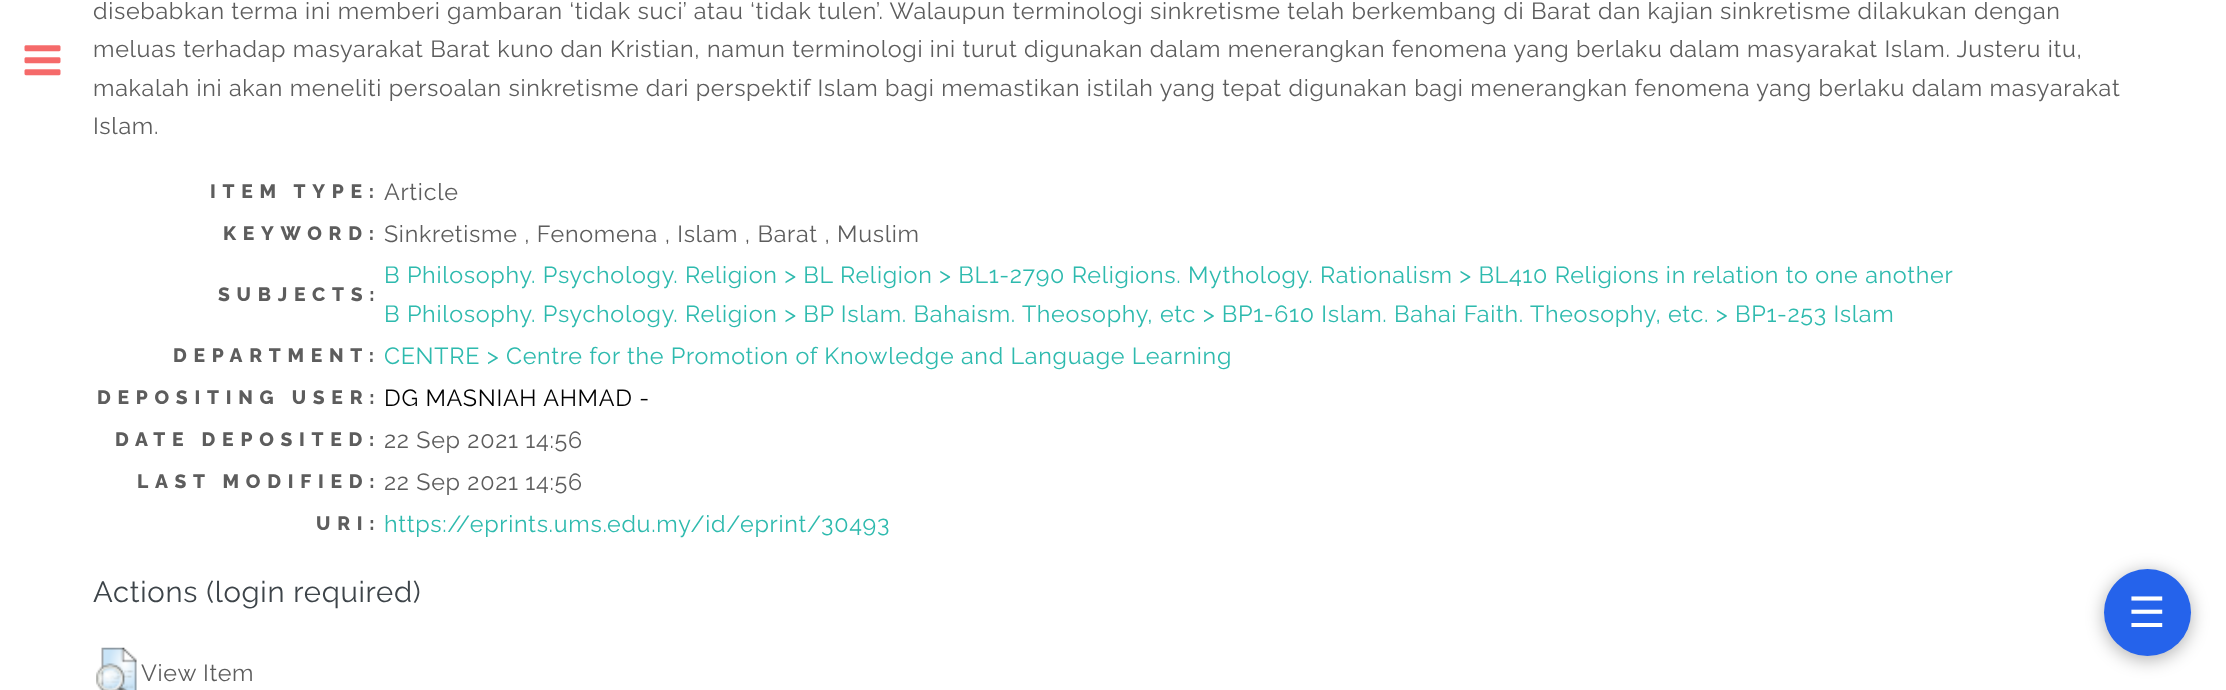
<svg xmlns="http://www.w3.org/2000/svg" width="2226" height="690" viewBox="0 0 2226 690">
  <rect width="100%" height="100%" fill="#fff"/>
  <image x="24" y="45" width="37" height="31" href="img/1.png"/>
  <image x="96" y="647" width="41" height="43" href="img/2.png"/>
  <rect x="2104" y="572" width="87" height="88" rx="43.5" fill="#0000004d" filter="blur(9px)"/>
  <circle cx="2147.5" cy="612.5" r="43.5" fill="#2563eb"/>
  <g font-family="Raleway" font-size="23.33" letter-spacing="0.7" fill="#5d5d5d">
    <text x="93" y="19">disebabkan terma ini memberi gambaran ‘tidak suci’ atau ‘tidak tulen’. Walaupun terminologi sinkretisme telah berkembang di Barat dan kajian sinkretisme dilakukan dengan</text>
    <text x="93" y="57">meluas terhadap masyarakat Barat kuno dan Kristian, namun terminologi ini turut digunakan dalam menerangkan fenomena yang berlaku dalam masyarakat Islam. Justeru itu,</text>
    <text x="93" y="96">makalah ini akan meneliti persoalan sinkretisme dari perspektif Islam bagi memastikan istilah yang tepat digunakan bagi menerangkan fenomena yang berlaku dalam masyarakat</text>
    <text x="93" y="134">Islam.</text>
  </g>
  <text x="210" y="198" font-family="Raleway" font-size="19.25" font-weight="800" letter-spacing="6.75" fill="#5d5d5d">ITEM TYPE:</text>
  <text x="384" y="200" font-family="Raleway" font-size="23.33" letter-spacing="0.7" fill="#5d5d5d">Article</text>
  <text x="223" y="240" font-family="Raleway" font-size="19.25" font-weight="800" letter-spacing="6.75" fill="#5d5d5d">KEYWORD:</text>
  <text x="384" y="242" font-family="Raleway" font-size="23.33" letter-spacing="0.7" fill="#5d5d5d">Sinkretisme , Fenomena , Islam , Barat , Muslim</text>
  <text x="218" y="301" font-family="Raleway" font-size="19.25" font-weight="800" letter-spacing="6.75" fill="#5d5d5d">SUBJECTS:</text>
  <g font-family="Raleway" font-size="23.33" letter-spacing="0.7" fill="#2ebaae">
    <text x="384" y="283">B Philosophy. Psychology. Religion &gt; BL Religion &gt; BL1-2790 Religions. Mythology. Rationalism &gt; BL410 Religions in relation to one another</text>
    <text x="384" y="322">B Philosophy. Psychology. Religion &gt; BP Islam. Bahaism. Theosophy, etc &gt; BP1-610 Islam.</text>
    <text x="1394" y="322">Bahai Faith.</text>
    <text x="1530" y="322">Theosophy, etc. &gt; BP1-253 Islam</text>
  </g>
  <text x="173" y="362" font-family="Raleway" font-size="19.25" font-weight="800" letter-spacing="6.75" fill="#5d5d5d">DEPARTMENT:</text>
  <text x="384" y="364" font-family="Raleway" font-size="23.33" letter-spacing="0.7" fill="#2ebaae">CENTRE &gt; Centre for the Promotion of Knowledge and Language Learning</text>
  <text x="97" y="404" font-family="Raleway" font-size="19.25" font-weight="800" letter-spacing="6.75" fill="#5d5d5d">DEPOSITING USER:</text>
  <text x="384" y="406" font-family="Raleway" font-size="23.33" letter-spacing="0.7" fill="#000">DG MASNIAH AHMAD -</text>
  <text x="115" y="446" font-family="Raleway" font-size="19.25" font-weight="800" letter-spacing="6.75" fill="#5d5d5d">DATE DEPOSITED:</text>
  <text x="384" y="448" font-family="Raleway" font-size="23.33" letter-spacing="0.7" fill="#5d5d5d">22 Sep 2021 14:56</text>
  <text x="137" y="488" font-family="Raleway" font-size="19.25" font-weight="800" letter-spacing="6.75" fill="#5d5d5d">LAST MODIFIED:</text>
  <text x="384" y="490" font-family="Raleway" font-size="23.33" letter-spacing="0.7" fill="#5d5d5d">22 Sep 2021 14:56</text>
  <text x="316" y="530" font-family="Raleway" font-size="19.25" font-weight="800" letter-spacing="6.75" fill="#5d5d5d">URI:</text>
  <text x="384" y="532" font-family="Raleway" font-size="23.33" letter-spacing="0.7" fill="#2ebaae">https://eprints.ums.edu.my/id/eprint/30493</text>
  <text x="93" y="602" font-family="Raleway" font-size="29.25" letter-spacing="0.7" fill="#3d4449">Actions (login required)</text>
  <text x="141" y="681" font-family="Raleway" font-size="23.33" letter-spacing="0.7" fill="#5d5d5d">View Item</text>
  <text x="2128" y="627" font-family="DejaVu Sans" font-size="42" fill="#fff">☰</text>
</svg>
